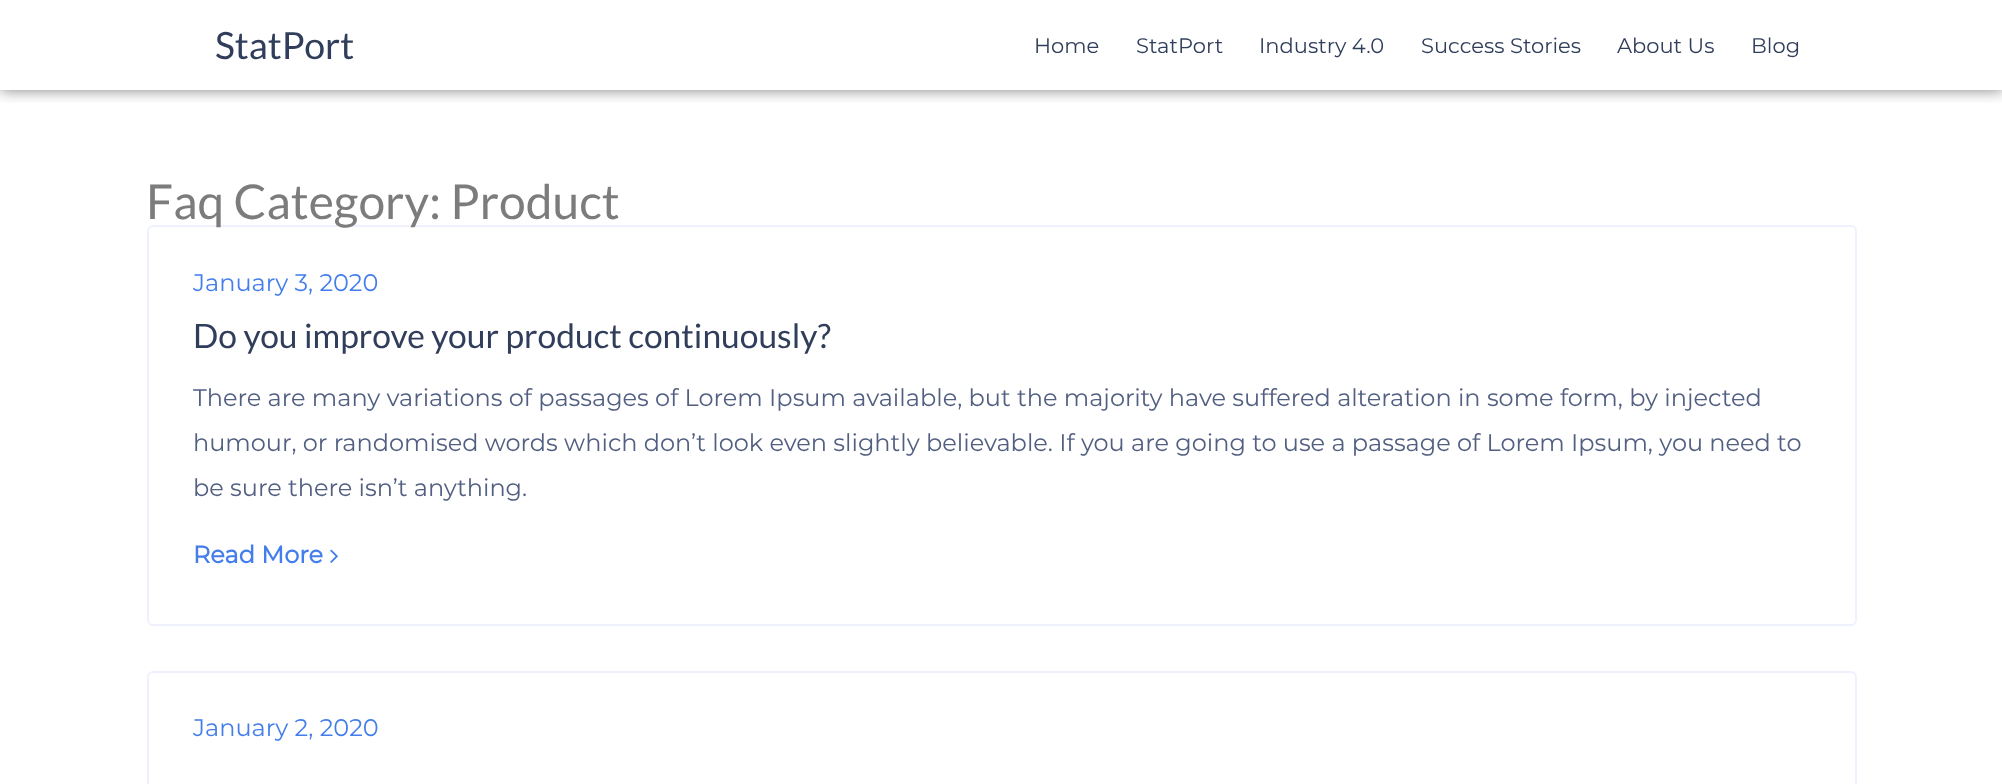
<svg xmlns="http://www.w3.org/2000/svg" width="2002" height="784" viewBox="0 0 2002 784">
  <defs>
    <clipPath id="clip1"><path d="M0 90h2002v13H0z"/></clipPath>
  </defs>
  <rect width="100%" height="100%" fill="#fff"/>
  <g clip-path="url(#clip1)">
    <path d="M0 0h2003v90H0z" fill="#00000080" filter="blur(7.5px)"/>
  </g>
  <rect x="148" y="226" width="1708" height="399" rx="5" fill="none" stroke="#eff1fe" stroke-width="2"/>
  <image x="330" y="549" width="8" height="14" href="img/1.png"/>
  <rect x="148" y="672" width="1708" height="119" rx="5" fill="none" stroke="#eff1fe" stroke-width="2"/>
  <text x="215" y="59" font-family="Lato" font-size="37.5" fill="#313e5b">StatPort</text>
  <g font-family="Montserrat" font-size="21" font-weight="100" fill="#313e5b">
    <text x="1034" y="53">Home</text>
    <text x="1136" y="53">StatPort</text>
    <text x="1259" y="53">Industry 4.0</text>
    <text x="1421" y="53">Success Stories</text>
    <text x="1617" y="53">About Us</text>
    <text x="1751" y="53">Blog</text>
  </g>
  <text x="146" y="219" font-family="Lato" font-size="48" fill="#7c7c7c">Faq Category: Product</text>
  <text x="193" y="291" font-family="Montserrat" font-size="24" font-weight="100" fill="#437eeb">January 3, 2020</text>
  <text x="193" y="348" font-family="Lato" font-size="33.6" fill="#313e5b">Do you improve your product continuously?</text>
  <g font-family="Montserrat" font-size="24" font-weight="100" fill="#525f81">
    <text x="193" y="406">There are many variations of passages of Lorem Ipsum available, but the majority have suffered alteration in some form, by injected</text>
    <text x="193" y="451">humour, or randomised words which don’t look even slightly believable. If you are going to use a passage of Lorem Ipsum, you need to</text>
    <text x="193" y="496">be sure there isn’t anything.</text>
  </g>
  <text x="193" y="563" font-family="Montserrat" font-size="24" font-weight="bold" fill="#437eeb">Read More</text>
  <text x="193" y="736" font-family="Montserrat" font-size="24" font-weight="100" fill="#437eeb">January 2, 2020</text>
</svg>
